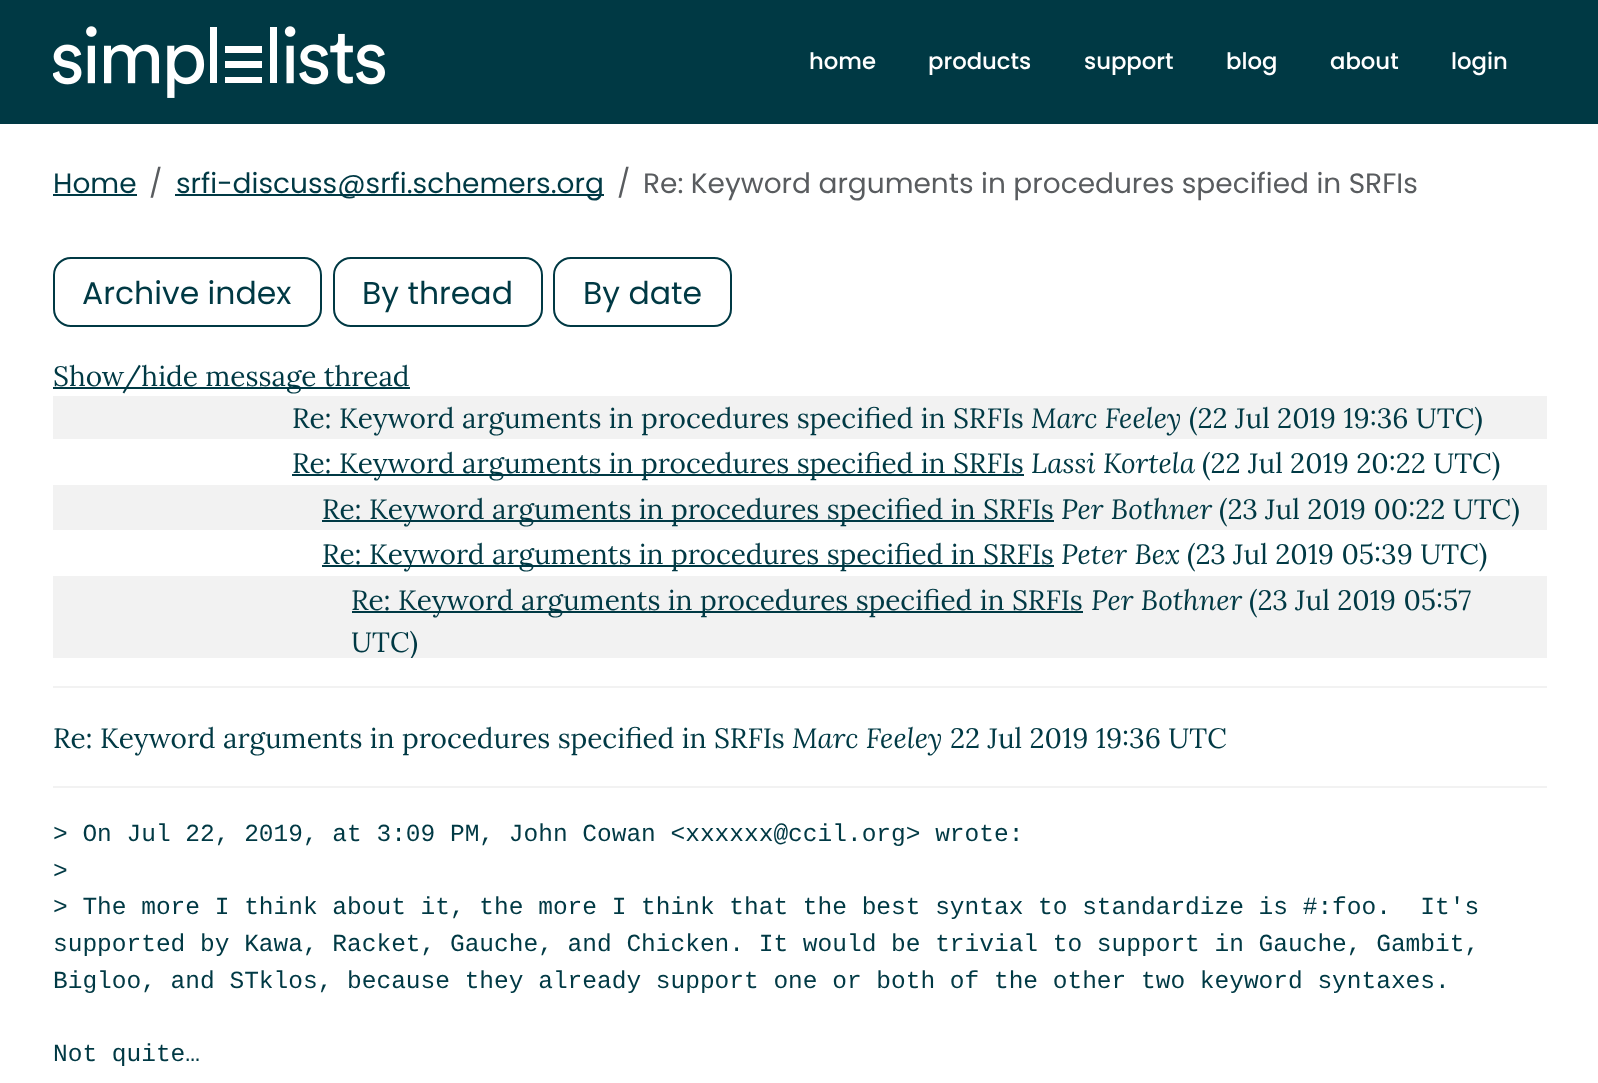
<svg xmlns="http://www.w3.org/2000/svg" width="1598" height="1083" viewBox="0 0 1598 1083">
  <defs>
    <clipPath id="clip1"><path d="M352 578h1193v80H352z"/></clipPath>
  </defs>
  <rect width="100%" height="100%" fill="#fff"/>
  <path d="M0 0h1598v124H0z" fill="#003944"/>
  <image x="53" y="26" width="332" height="72" href="img/1.png"/>
  <path d="M53 194h84v2H53z" fill="#003944"/>
  <path d="M175 194h429v2H175z" fill="#003944"/>
  <rect x="54" y="258" width="267" height="68" rx="17" fill="none" stroke="#003944" stroke-width="2"/>
  <rect x="334" y="258" width="208" height="68" rx="17" fill="none" stroke="#003944" stroke-width="2"/>
  <rect x="554" y="258" width="177" height="68" rx="17" fill="none" stroke="#003944" stroke-width="2"/>
  <path d="M53 387h357v2H53z" fill="#003944"/>
  <path d="M53 396h1494v43H53z" fill="#f2f2f2"/>
  <path d="M292 474h732v2H292z" fill="#003944"/>
  <path d="M53 485h1494v45H53z" fill="#f2f2f2"/>
  <path d="M322 520h732v2H322z" fill="#003944"/>
  <path d="M322 565h732v2H322z" fill="#003944"/>
  <path d="M53 576h1494v82H53z" fill="#f2f2f2"/>
  <path d="M352 611h731v2H352z" fill="#003944"/>
  <path d="M53 686h1494v2H53z" fill="#f2f2f2"/>
  <path d="M53 786h1494v2H53z" fill="#f2f2f2"/>
  <g font-family="Poppins" font-size="22.75" font-weight="500" fill="#fff">
    <text x="809" y="69">home</text>
    <text x="928" y="69">products</text>
    <text x="1084" y="69">support</text>
    <text x="1226" y="69">blog</text>
    <text x="1330" y="69">about</text>
    <text x="1451" y="69">login</text>
  </g>
  <text x="53" y="193" font-family="Poppins" font-size="28" fill="#003944">Home</text>
  <text x="149" y="193" font-family="Poppins" font-size="28" fill="#595c5f">/</text>
  <text x="176" y="193" font-family="Poppins" font-size="28" fill="#003944">srfi-discuss@srfi.schemers.org</text>
  <g font-family="Poppins" font-size="28" fill="#595c5f">
    <text x="617" y="193">/</text>
    <text x="643" y="193">Re: Keyword arguments in procedures specified in SRFIs</text>
  </g>
  <g font-family="Poppins" font-size="31.5" fill="#003944">
    <text x="82" y="304">Archive index</text>
    <text x="362" y="304">By thread</text>
    <text x="583" y="304">By date</text>
  </g>
  <g font-family="Lora" font-size="28" fill="#003944">
    <text x="53" y="386">Show/hide message thread</text>
    <text x="292" y="428">Re: Keyword arguments in procedures specified in SRFIs</text>
  </g>
  <text x="1031" y="428" font-family="Lora" font-size="28" font-style="italic" fill="#003944">Marc Feeley</text>
  <g font-family="Lora" font-size="28" fill="#003944">
    <text x="1189" y="428">(22 Jul 2019 19:36 UTC)</text>
    <text x="292" y="473">Re: Keyword arguments in procedures specified in SRFIs</text>
  </g>
  <text x="1031" y="473" font-family="Lora" font-size="28" font-style="italic" fill="#003944">Lassi Kortela</text>
  <g font-family="Lora" font-size="28" fill="#003944">
    <text x="1202" y="473">(22 Jul 2019 20:22 UTC)</text>
    <text x="322" y="519">Re: Keyword arguments in procedures specified in SRFIs</text>
  </g>
  <text x="1061" y="519" font-family="Lora" font-size="28" font-style="italic" fill="#003944">Per Bothner</text>
  <g font-family="Lora" font-size="28" fill="#003944">
    <text x="1219" y="519">(23 Jul 2019 00:22 UTC)</text>
    <text x="322" y="564">Re: Keyword arguments in procedures specified in SRFIs</text>
  </g>
  <text x="1061" y="564" font-family="Lora" font-size="28" font-style="italic" fill="#003944">Peter Bex</text>
  <g font-family="Lora" font-size="28" fill="#003944">
    <text x="1187" y="564">(23 Jul 2019 05:39 UTC)</text>
    <text x="351" y="610">Re: Keyword arguments in procedures specified in SRFIs</text>
  </g>
  <text x="1091" y="610" font-family="Lora" font-size="28" font-style="italic" fill="#003944">Per Bothner</text>
  <text x="1249" y="610" font-family="Lora" font-size="28" fill="#003944">(23 Jul 2019 05:57</text>
  <g clip-path="url(#clip1)">
    <text x="351" y="652" font-family="Lora" font-size="28" fill="#003944">UTC)</text>
  </g>
  <text x="53" y="748" font-family="Lora" font-size="28" fill="#003944">Re: Keyword arguments in procedures specified in SRFIs</text>
  <text x="792" y="748" font-family="Lora" font-size="28" font-style="italic" fill="#003944">Marc Feeley</text>
  <text x="950" y="748" font-family="Lora" font-size="28" fill="#003944">22 Jul 2019 19:36 UTC</text>
  <g font-family="Liberation Mono" font-size="24.5" fill="#003944">
    <text x="53" y="841">&gt; On Jul 22, 2019, at 3:09 PM, John Cowan &lt;xxxxxx@ccil.org&gt; wrote:</text>
    <text x="53" y="878">&gt;</text>
    <text x="53" y="914" xml:space="preserve">&gt; The more I think about it, the more I think that the best syntax to standardize is #:foo.  It's</text>
    <text x="53" y="951">supported by Kawa, Racket, Gauche, and Chicken. It would be trivial to support in Gauche, Gambit,</text>
    <text x="53" y="988">Bigloo, and STklos, because they already support one or both of the other two keyword syntaxes.</text>
    <text x="53" y="1061">Not quite…</text>
  </g>
</svg>
